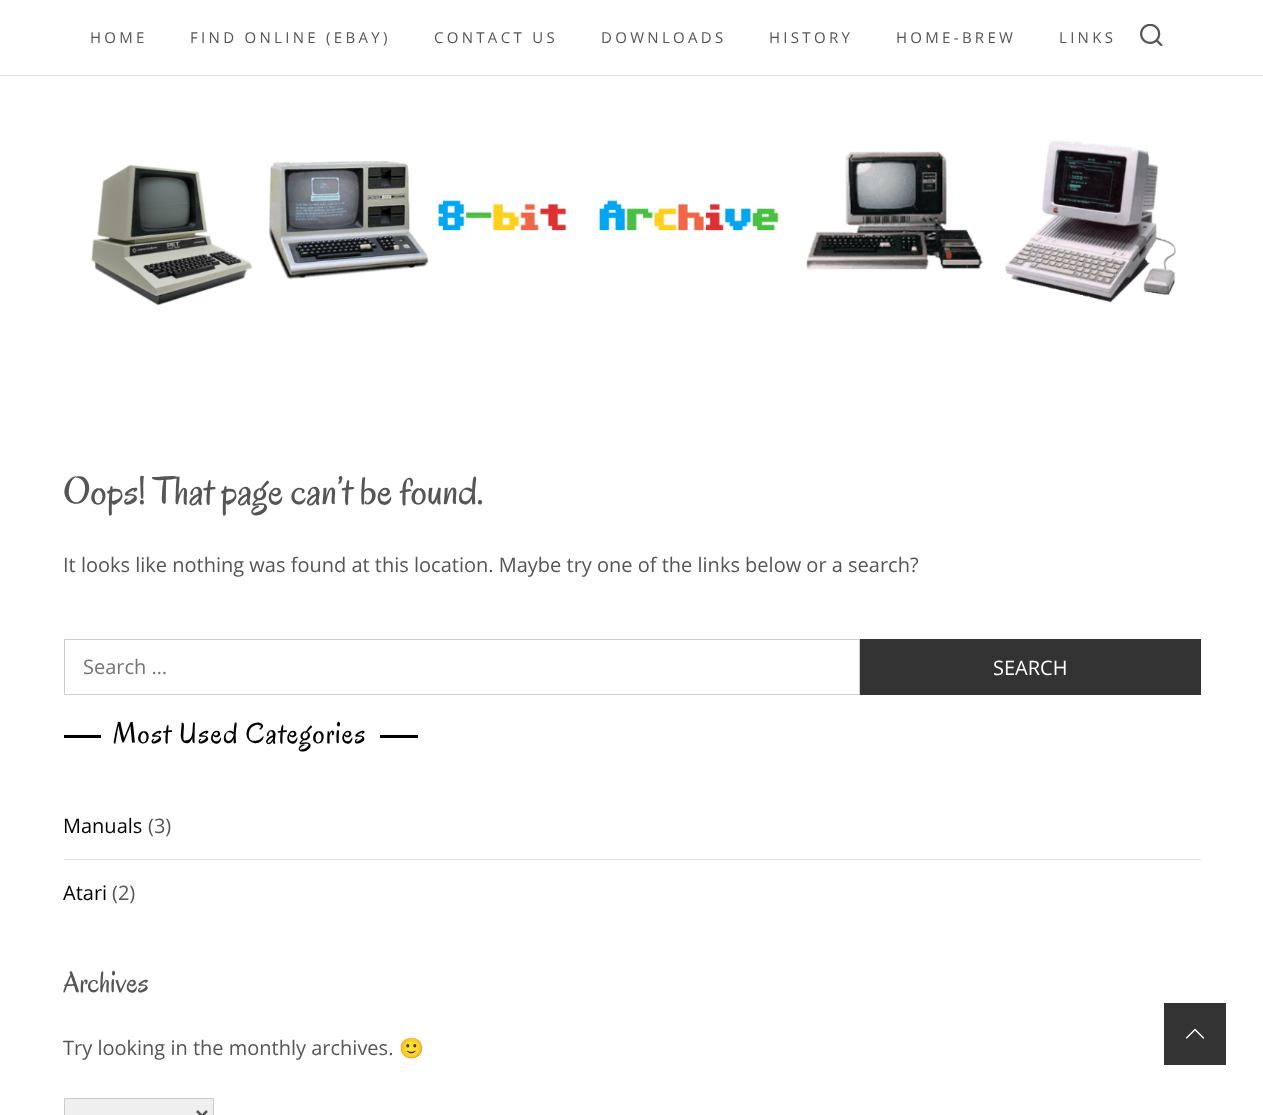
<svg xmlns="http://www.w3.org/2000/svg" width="1263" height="1115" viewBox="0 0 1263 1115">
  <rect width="100%" height="100%" fill="#fff"/>
  <path d="M0 75h1263v1H0z" fill="#e2e2e2"/>
  <image x="1140" y="24" width="23" height="22" href="img/1.png"/>
  <image x="91" y="139" width="1085" height="167" href="img/2.png"/>
  <path d="M64.5 639.5h795v55H64.5z" fill="none" stroke="#ccc"/>
  <path d="M860 639h341v56H860z" fill="#333"/>
  <path d="M64 735h37v3H64z" fill="#000"/>
  <path d="M380 735h38v3H380z" fill="#000"/>
  <path d="M64 859h1137v1H64z" fill="#e2e2e2"/>
  <path d="M64.5 1098.5h149v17H64.5z" fill="#efefef" stroke="#ccc"/>
  <path d="M197 1111L202 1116L207 1111" fill="none" stroke="#555" stroke-width="2.5"/>
  <path d="M1164 1003h62v62H1164z" fill="#333"/>
  <image x="1185" y="1028" width="20" height="11" href="img/3.png"/>
  <g font-family="Open Sans" font-size="15" letter-spacing="3.3" fill="#555">
    <text x="90" y="43">HOME</text>
    <text x="190" y="43">FIND ONLINE (EBAY)</text>
    <text x="434" y="43">CONTACT US</text>
    <text x="601" y="43">DOWNLOADS</text>
    <text x="769" y="43">HISTORY</text>
    <text x="896" y="43">HOME-BREW</text>
    <text x="1059" y="43">LINKS</text>
  </g>
  <text x="63" y="504" font-family="Oregano" font-size="40" fill="#555">Oops! That page can’t be found.</text>
  <text x="63" y="572" font-family="Open Sans" font-size="20" fill="#555">It looks like nothing was found at this location. Maybe try one of the links below or a search?</text>
  <text x="83" y="674" font-family="Open Sans" font-size="20" fill="#757575">Search …</text>
  <text x="993" y="675" font-family="Open Sans" font-size="20" fill="#fff">SEARCH</text>
  <text x="113" y="743" font-family="Oregano" font-size="30" letter-spacing="1.25" fill="#000">Most Used Categories</text>
  <text x="63" y="833" font-family="Open Sans" font-size="20" fill="#000">Manuals</text>
  <text x="148" y="833" font-family="Open Sans" font-size="20" fill="#555">(3)</text>
  <text x="63" y="900" font-family="Open Sans" font-size="20" fill="#000">Atari</text>
  <text x="112" y="900" font-family="Open Sans" font-size="20" fill="#555">(2)</text>
  <text x="63" y="992" font-family="Oregano" font-size="30" fill="#555">Archives</text>
  <text x="63" y="1055" font-family="Open Sans" font-size="20" fill="#555">Try looking in the monthly archives.</text>
  <text x="399" y="1055" font-family="Noto Color Emoji" font-size="20" fill="#555">🙂</text>
</svg>
